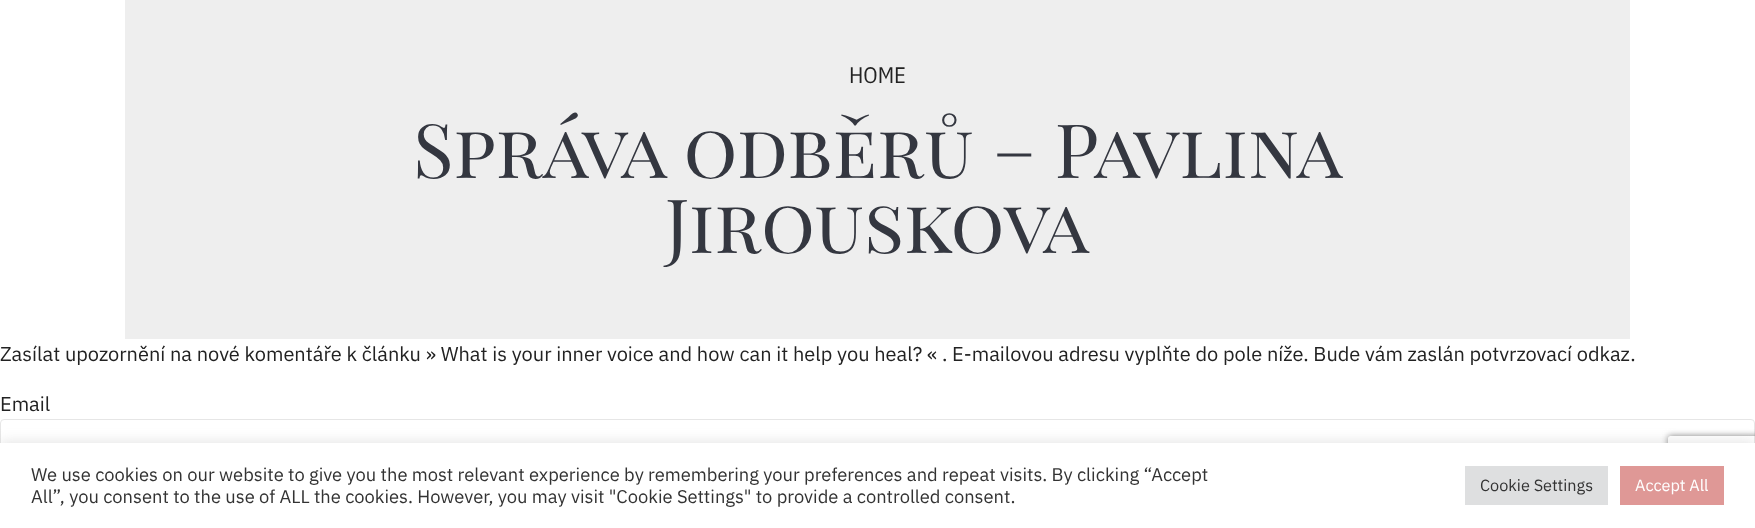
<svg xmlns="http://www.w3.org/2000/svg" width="1755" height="528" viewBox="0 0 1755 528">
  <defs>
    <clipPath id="clip1"><path d="M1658 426H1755V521H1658ZM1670.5 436H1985.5C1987 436 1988 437 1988 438.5V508.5C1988 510 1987 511 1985.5 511H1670.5C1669 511 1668 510 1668 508.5V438.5C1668 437 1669 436 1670.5 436Z" clip-rule="evenodd"/></clipPath>
  </defs>
  <rect width="100%" height="100%" fill="#fff"/>
  <path d="M125 0h1505v339H125z" fill="#eee"/>
  <rect x="0.5" y="419.5" width="1754" height="54" rx="3.5" fill="none" stroke="#e6e6e6"/>
  <g clip-path="url(#clip1)">
    <rect x="1668" y="436" width="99" height="75" rx="2.5" fill="#808080" filter="blur(3px)"/>
  </g>
  <path d="M0 441h1755v87H0z" fill="#acabab4d" filter="blur(6px)"/>
  <path d="M0 443h1755v85H0z" fill="#fff"/>
  <path d="M1465 466h143v39H1465z" fill="#dedfe0"/>
  <path d="M1620 466h104v39H1620z" fill="#df9896"/>
  <text x="849" y="83" font-family="IBM Plex Sans Condensed" font-size="22.5" fill="#222">HOME</text>
  <g font-family="Playfair Display SC" font-size="75" fill="#343740">
    <text x="413" y="178">Správa odběrů – Pavlina</text>
    <text x="665" y="253">Jirouskova</text>
  </g>
  <g font-family="IBM Plex Sans" font-size="20" fill="#222">
    <text x="0" y="361">Zasílat upozornění na nové komentáře k článku » What is your inner voice and how can it help you heal? « . E-mailovou adresu vyplňte do pole níže. Bude vám zaslán potvrzovací odkaz.</text>
    <text x="0" y="411">Email</text>
  </g>
  <g font-family="IBM Plex Sans" font-size="18.33" fill="#333">
    <text x="31" y="481">We use cookies on our website to give you the most relevant experience by remembering your preferences and repeat visits. By clicking “Accept</text>
    <text x="31" y="503">All”, you consent to the use of ALL the cookies. However, you may visit "Cookie Settings" to provide a controlled consent.</text>
  </g>
  <text x="1480" y="491" font-family="IBM Plex Sans" font-size="16.25" fill="#333">Cookie Settings</text>
  <text x="1635" y="491" font-family="IBM Plex Sans" font-size="16.25" fill="#fff">Accept All</text>
</svg>
